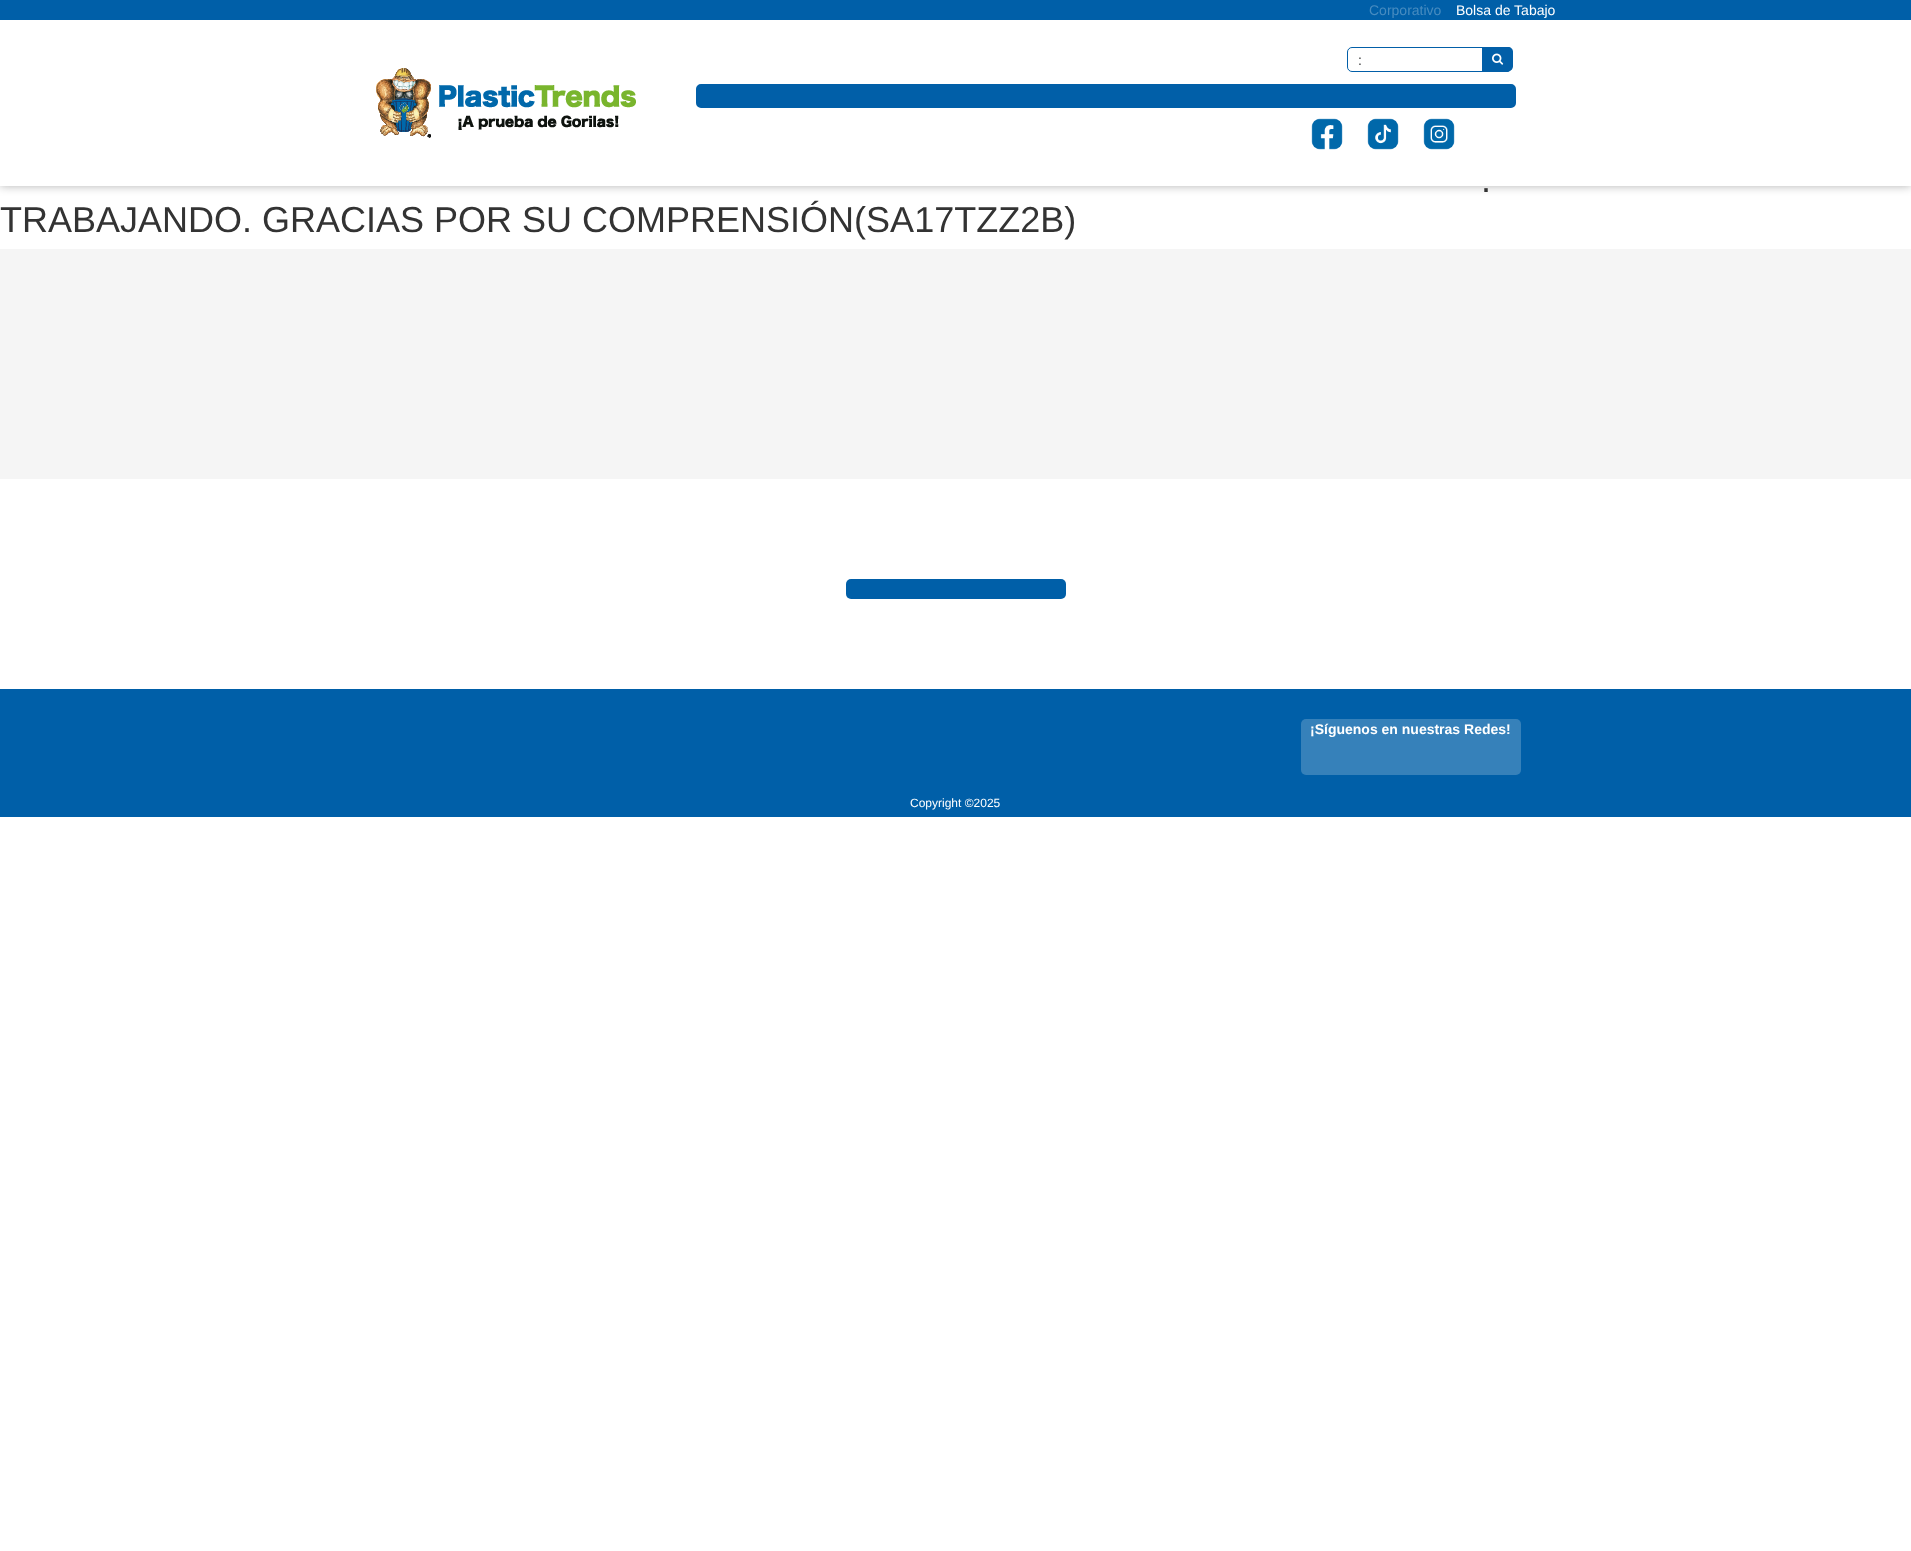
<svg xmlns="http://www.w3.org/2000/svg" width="1911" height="1551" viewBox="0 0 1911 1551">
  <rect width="100%" height="100%" fill="#fff"/>
  <path d="M0 0h1911v186H0z" fill="#0000004d" filter="blur(5px)"/>
  <path d="M0 20h1911v166H0z" fill="#fff"/>
  <path d="M0 0h1911v20H0z" fill="#005fa8"/>
  <rect x="1347.5" y="47.5" width="164" height="24" rx="4.5" fill="none" stroke="#025fa8"/>
  <path d="M1483 47H1508C1511 47 1513 49 1513 52V66C1513 69 1511 71 1508 71H1483Z" fill="#025fa8"/>
  <image x="1492" y="53" width="12" height="12" href="img/1.png"/>
  <path d="M1482.5 47.5H1507C1509.5 47.5 1511.5 49.5 1511.5 52V67C1511.5 69.5 1509.5 71.5 1507 71.5H1482.5Z" fill="none" stroke="#025fa8"/>
  <rect x="697" y="85" width="818" height="22" rx="4" fill="#015fa8" stroke="#015fa8" stroke-width="2"/>
  <image x="1311" y="118" width="32" height="32" href="img/2.png"/>
  <image x="1367" y="118" width="32" height="32" href="img/3.png"/>
  <image x="1423" y="118" width="32" height="32" href="img/4.png"/>
  <image x="376" y="68" width="260" height="70" href="img/5.png"/>
  <path d="M0 249h1911v230H0z" fill="#f5f5f5"/>
  <rect x="846" y="579" width="220" height="20" rx="5" fill="#005fa8"/>
  <path d="M0 689h1911v128H0z" fill="#005fa8"/>
  <rect x="1301" y="719" width="220" height="56" rx="5" fill="#3681ba"/>
  <text x="1369" y="15" font-family="Liberation Sans" font-size="14" fill="#478cc0">Corporativo</text>
  <text x="1456" y="15" font-family="Liberation Sans" font-size="14" fill="#fff">Bolsa de Tabajo</text>
  <text x="1358" y="65" font-family="Liberation Sans" font-size="14" fill="#3d3f40">:</text>
  <g font-family="Liberation Sans" font-size="36" fill="#333">
    <text x="1481" y="192">.</text>
    <text x="0" y="232">TRABAJANDO. GRACIAS POR SU COMPRENSIÓN(SA17TZZ2B)</text>
  </g>
  <text x="1310" y="734" font-family="Liberation Sans" font-size="14" font-weight="bold" fill="#fff">¡Síguenos en nuestras Redes!</text>
  <text x="910" y="807" font-family="Liberation Sans" font-size="12" fill="#fff">Copyright ©2025</text>
</svg>
